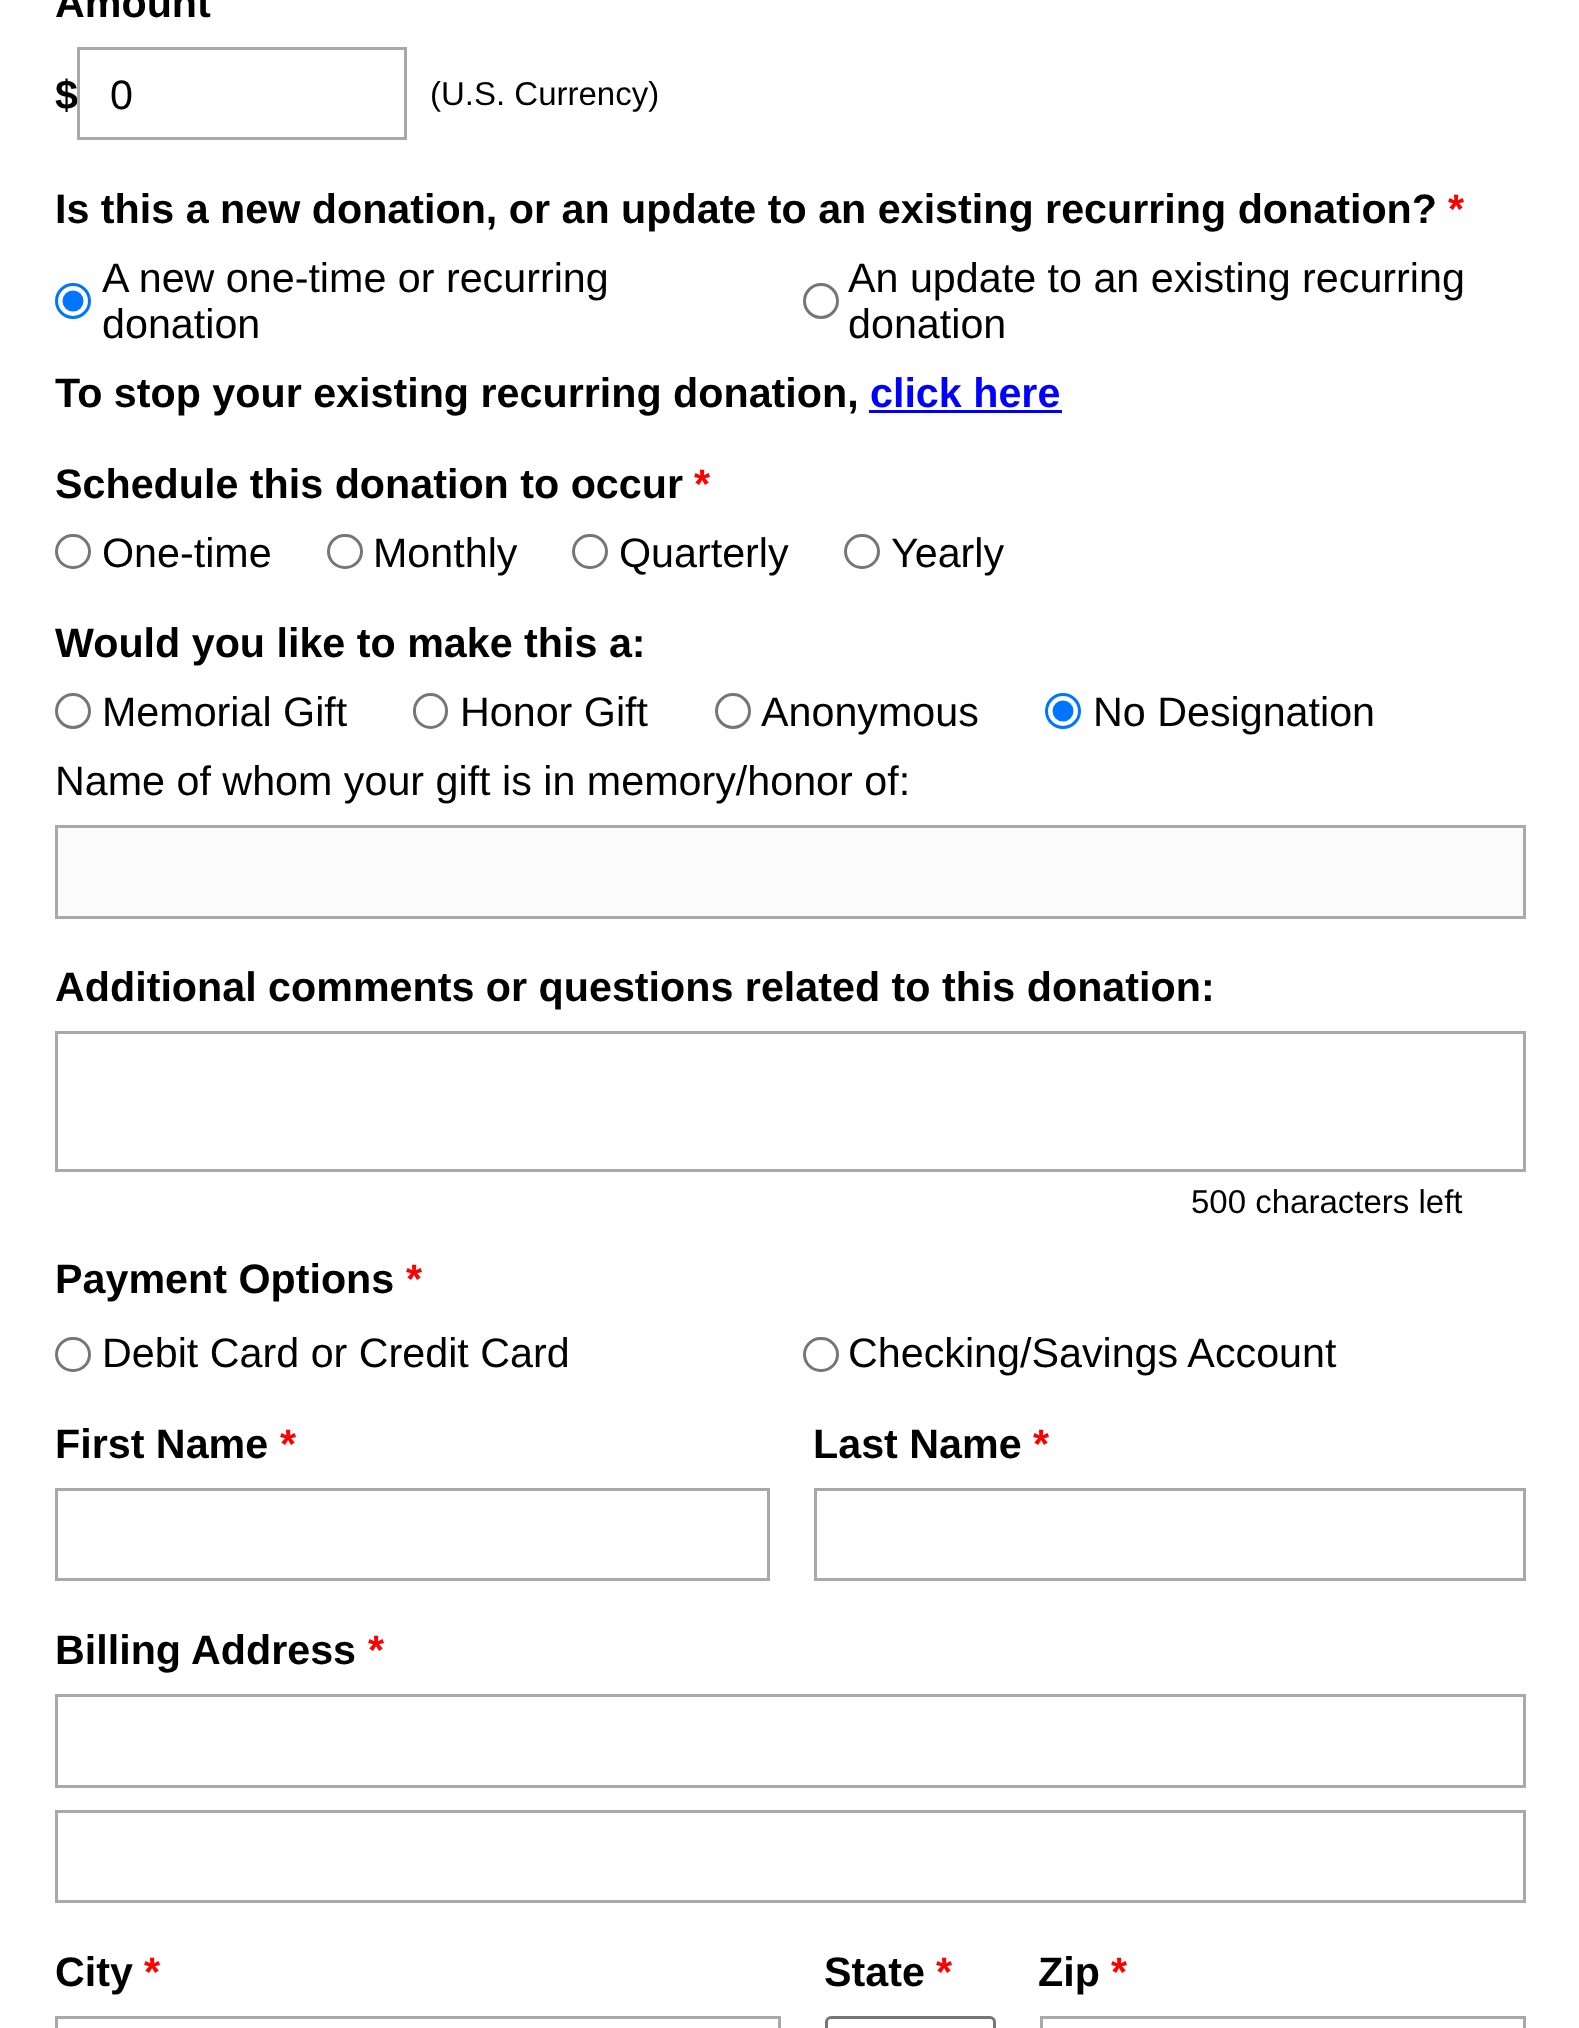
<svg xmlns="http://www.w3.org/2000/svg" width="1579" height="2028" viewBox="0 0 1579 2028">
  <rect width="100%" height="100%" fill="#fff"/>
  <circle cx="73" cy="301" r="16.5" fill="none" stroke="#0075ff" stroke-width="3"/>
  <circle cx="73" cy="301" r="10.5" fill="#0075ff"/>
  <circle cx="821" cy="301" r="16.5" fill="none" stroke="#767676" stroke-width="3"/>
  <path d="M869 410h193v3H869z" fill="#00f"/>
  <rect x="56.5" y="535.5" width="33" height="32" rx="16" fill="none" stroke="#767676" stroke-width="3"/>
  <rect x="328.5" y="535.5" width="33" height="32" rx="16" fill="none" stroke="#767676" stroke-width="3"/>
  <rect x="573.5" y="535.5" width="33" height="32" rx="16" fill="none" stroke="#767676" stroke-width="3"/>
  <rect x="845.5" y="535.5" width="33" height="32" rx="16" fill="none" stroke="#767676" stroke-width="3"/>
  <circle cx="73" cy="711" r="16.5" fill="none" stroke="#767676" stroke-width="3"/>
  <rect x="414.5" y="694.5" width="32" height="33" rx="16" fill="none" stroke="#767676" stroke-width="3"/>
  <circle cx="733" cy="711" r="16.5" fill="none" stroke="#767676" stroke-width="3"/>
  <circle cx="1063" cy="711" r="16.5" fill="none" stroke="#0075ff" stroke-width="3"/>
  <circle cx="1063" cy="711" r="10.5" fill="#0075ff"/>
  <path d="M56.5 826.5h1468v91H56.5z" fill="#fbfbfb" stroke="#a9a9a9" stroke-width="3"/>
  <path d="M56.5 1032.5h1468v138H56.5z" fill="none" stroke="#a9a9a9" stroke-width="3"/>
  <rect x="56.5" y="1338.5" width="33" height="32" rx="16" fill="none" stroke="#767676" stroke-width="3"/>
  <rect x="804.5" y="1338.5" width="33" height="32" rx="16" fill="none" stroke="#767676" stroke-width="3"/>
  <path d="M56.5 1489.5h712v90H56.5z" fill="none" stroke="#a9a9a9" stroke-width="3"/>
  <path d="M815.5 1489.5h709v90H815.5z" fill="none" stroke="#a9a9a9" stroke-width="3"/>
  <path d="M56.5 1695.5h1468v91H56.5z" fill="none" stroke="#a9a9a9" stroke-width="3"/>
  <path d="M56.5 1811.5h1468v90H56.5z" fill="none" stroke="#a9a9a9" stroke-width="3"/>
  <path d="M56.5 2017.5h723v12H56.5z" fill="none" stroke="#a9a9a9" stroke-width="3"/>
  <rect x="826.5" y="2017.5" width="168" height="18" rx="4.5" fill="none" stroke="#767676" stroke-width="3"/>
  <path d="M1041.5 2017.5h483v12H1041.5z" fill="none" stroke="#a9a9a9" stroke-width="3"/>
  <g font-family="Liberation Sans" font-size="41.25" font-weight="bold" fill="#000">
    <text x="55" y="17">Amount</text>
    <text x="55" y="109">$</text>
  </g>
  <path d="M78.5 48.5h327v90H78.5z" fill="none" stroke="#a9a9a9" stroke-width="3"/>
  <text x="110" y="109" font-family="Liberation Sans" font-size="41.25" fill="#000">0</text>
  <text x="430" y="105" font-family="Liberation Sans" font-size="33" fill="#000">(U.S. Currency)</text>
  <text x="55" y="223" font-family="Liberation Sans" font-size="41.25" font-weight="bold" fill="#000">Is this a new donation, or an update to an existing recurring donation?</text>
  <text x="1448" y="223" font-family="Liberation Sans" font-size="41.25" font-weight="bold" fill="#f00">*</text>
  <g font-family="Liberation Sans" font-size="41.25" fill="#000">
    <text x="102" y="292">A new one-time or recurring</text>
    <text x="102" y="338">donation</text>
    <text x="848" y="292">An update to an existing recurring</text>
    <text x="848" y="338">donation</text>
  </g>
  <text x="55" y="407" font-family="Liberation Sans" font-size="41.25" font-weight="bold" fill="#000">To stop your existing recurring donation,</text>
  <text x="870" y="407" font-family="Liberation Sans" font-size="41.25" font-weight="bold" fill="#00f">click here</text>
  <text x="55" y="498" font-family="Liberation Sans" font-size="41.25" font-weight="bold" fill="#000">Schedule this donation to occur</text>
  <text x="694" y="498" font-family="Liberation Sans" font-size="41.25" font-weight="bold" fill="#f00">*</text>
  <g font-family="Liberation Sans" font-size="41.25" fill="#000">
    <text x="102" y="567">One-time</text>
    <text x="373" y="567">Monthly</text>
    <text x="619" y="567">Quarterly</text>
    <text x="891" y="567">Yearly</text>
  </g>
  <text x="55" y="657" font-family="Liberation Sans" font-size="41.25" font-weight="bold" fill="#000">Would you like to make this a:</text>
  <g font-family="Liberation Sans" font-size="41.25" fill="#000">
    <text x="102" y="726">Memorial Gift</text>
    <text x="460" y="726">Honor Gift</text>
    <text x="761" y="726">Anonymous</text>
    <text x="1093" y="726">No Designation</text>
    <text x="55" y="795">Name of whom your gift is in memory/honor of:</text>
  </g>
  <text x="55" y="1001" font-family="Liberation Sans" font-size="41.25" font-weight="bold" fill="#000">Additional comments or questions related to this donation:</text>
  <text x="1191" y="1213" font-family="Liberation Sans" font-size="33" fill="#000">500 characters left</text>
  <text x="55" y="1293" font-family="Liberation Sans" font-size="41.25" font-weight="bold" fill="#000">Payment Options</text>
  <text x="406" y="1293" font-family="Liberation Sans" font-size="41.25" font-weight="bold" fill="#f00">*</text>
  <g font-family="Liberation Sans" font-size="41.25" fill="#000">
    <text x="102" y="1367">Debit Card or Credit Card</text>
    <text x="848" y="1367">Checking/Savings Account</text>
  </g>
  <text x="55" y="1458" font-family="Liberation Sans" font-size="41.25" font-weight="bold" fill="#000">First Name</text>
  <text x="280" y="1458" font-family="Liberation Sans" font-size="41.25" font-weight="bold" fill="#f00">*</text>
  <text x="813" y="1458" font-family="Liberation Sans" font-size="41.25" font-weight="bold" fill="#000">Last Name</text>
  <text x="1033" y="1458" font-family="Liberation Sans" font-size="41.25" font-weight="bold" fill="#f00">*</text>
  <text x="55" y="1664" font-family="Liberation Sans" font-size="41.25" font-weight="bold" fill="#000">Billing Address</text>
  <text x="368" y="1664" font-family="Liberation Sans" font-size="41.25" font-weight="bold" fill="#f00">*</text>
  <text x="55" y="1986" font-family="Liberation Sans" font-size="41.25" font-weight="bold" fill="#000">City</text>
  <text x="144" y="1986" font-family="Liberation Sans" font-size="41.25" font-weight="bold" fill="#f00">*</text>
  <text x="824" y="1986" font-family="Liberation Sans" font-size="41.25" font-weight="bold" fill="#000">State</text>
  <text x="936" y="1986" font-family="Liberation Sans" font-size="41.25" font-weight="bold" fill="#f00">*</text>
  <text x="1038" y="1986" font-family="Liberation Sans" font-size="41.25" font-weight="bold" fill="#000">Zip</text>
  <text x="1111" y="1986" font-family="Liberation Sans" font-size="41.25" font-weight="bold" fill="#f00">*</text>
</svg>
